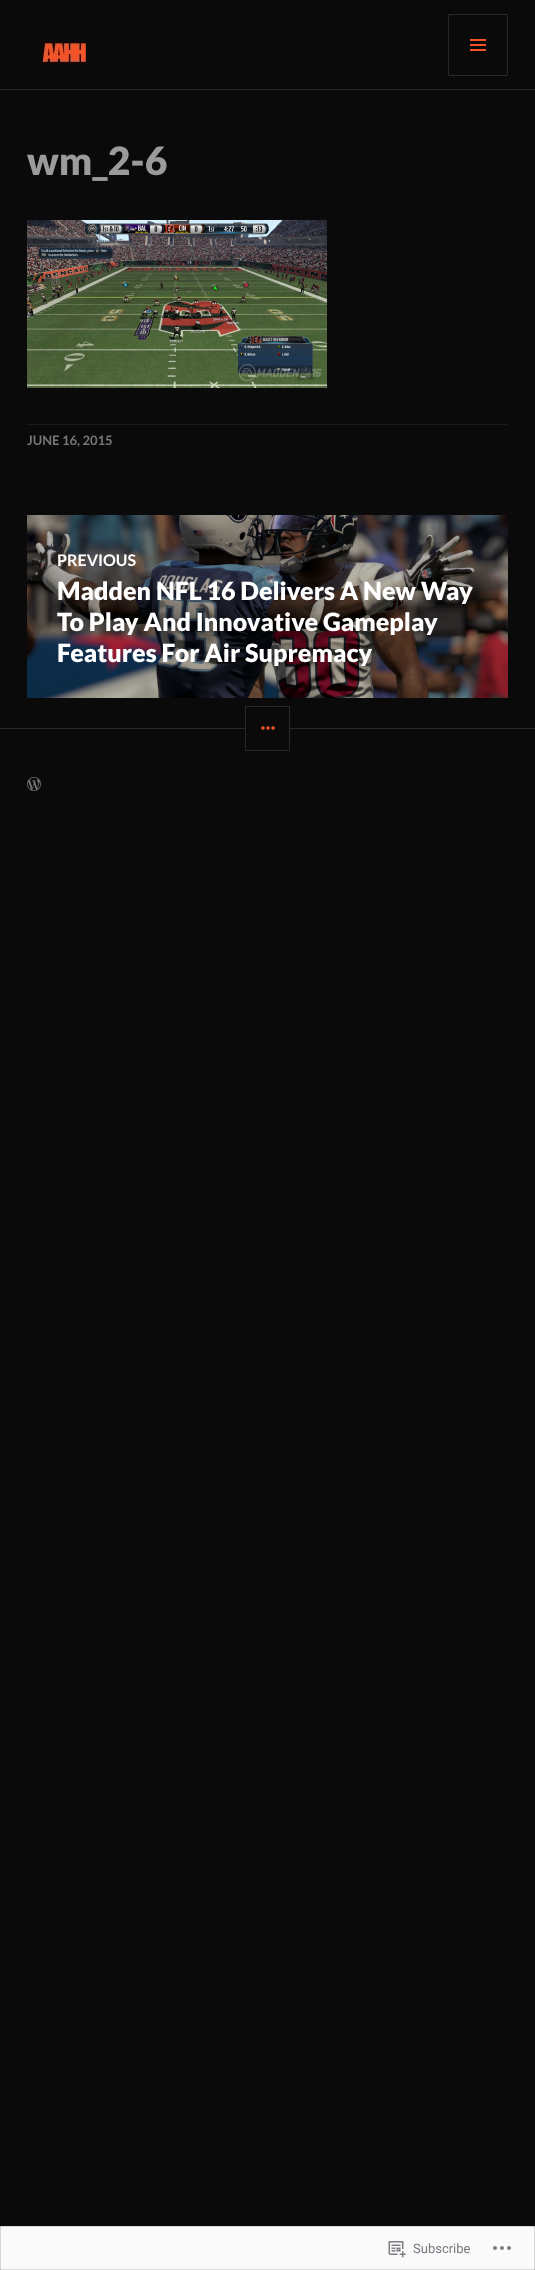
<svg xmlns="http://www.w3.org/2000/svg" width="535" height="2270" viewBox="0 0 535 2270">
  <rect width="100%" height="100%" fill="#0a0a0a"/>
  <path d="M0 89h535v1H0z" fill="#282828"/>
  <image x="42" y="42" width="44" height="22" href="img/1.png"/>
  <path d="M448.5 14.5h59v61H448.5z" fill="none" stroke="#282828"/>
  <image x="470" y="39" width="16" height="12" href="img/2.png"/>
  <image x="27" y="220" width="300" height="168" href="img/3.png"/>
  <path d="M27 424h481v1H27z" fill="#191919"/>
  <image x="27" y="515" width="481" height="183" href="img/4.png"/>
  <path d="M0 728h535v1H0z" fill="#282828"/>
  <path d="M246 728h43v1H246z" fill="#0a0a0a"/>
  <path d="M245.5 706.5h44v44H245.5z" fill="none" stroke="#282828"/>
  <image x="261" y="726" width="14" height="4" href="img/5.png"/>
  <image x="27" y="777" width="14" height="14" href="img/6.png"/>
  <path d="M0.5 2226.5h534v43H0.5z" fill="#fafafa" stroke="#d8d8da"/>
  <image x="388" y="2241" width="18" height="17" href="img/7.png"/>
  <image x="493" y="2246" width="18" height="4" href="img/8.png"/>
  <text x="27" y="175" font-family="Lato" font-size="39" font-weight="900" fill="#9b9b9b">wm_2-6</text>
  <text x="27" y="445" font-family="Lato" font-size="13" font-weight="bold" fill="#777">JUNE 16, 2015</text>
  <text x="57" y="566" font-family="Lato" font-size="16" font-weight="bold" fill="#fff">PREVIOUS</text>
  <g font-family="Lato" font-size="25" font-weight="900" fill="#fff">
    <text x="57" y="600">Madden NFL 16 Delivers A New Way</text>
    <text x="57" y="631">To Play And Innovative Gameplay</text>
    <text x="57" y="662">Features For Air Supremacy</text>
  </g>
  <text x="413" y="2253" font-family="Roboto" font-size="13" fill="#767a80">Subscribe</text>
</svg>
